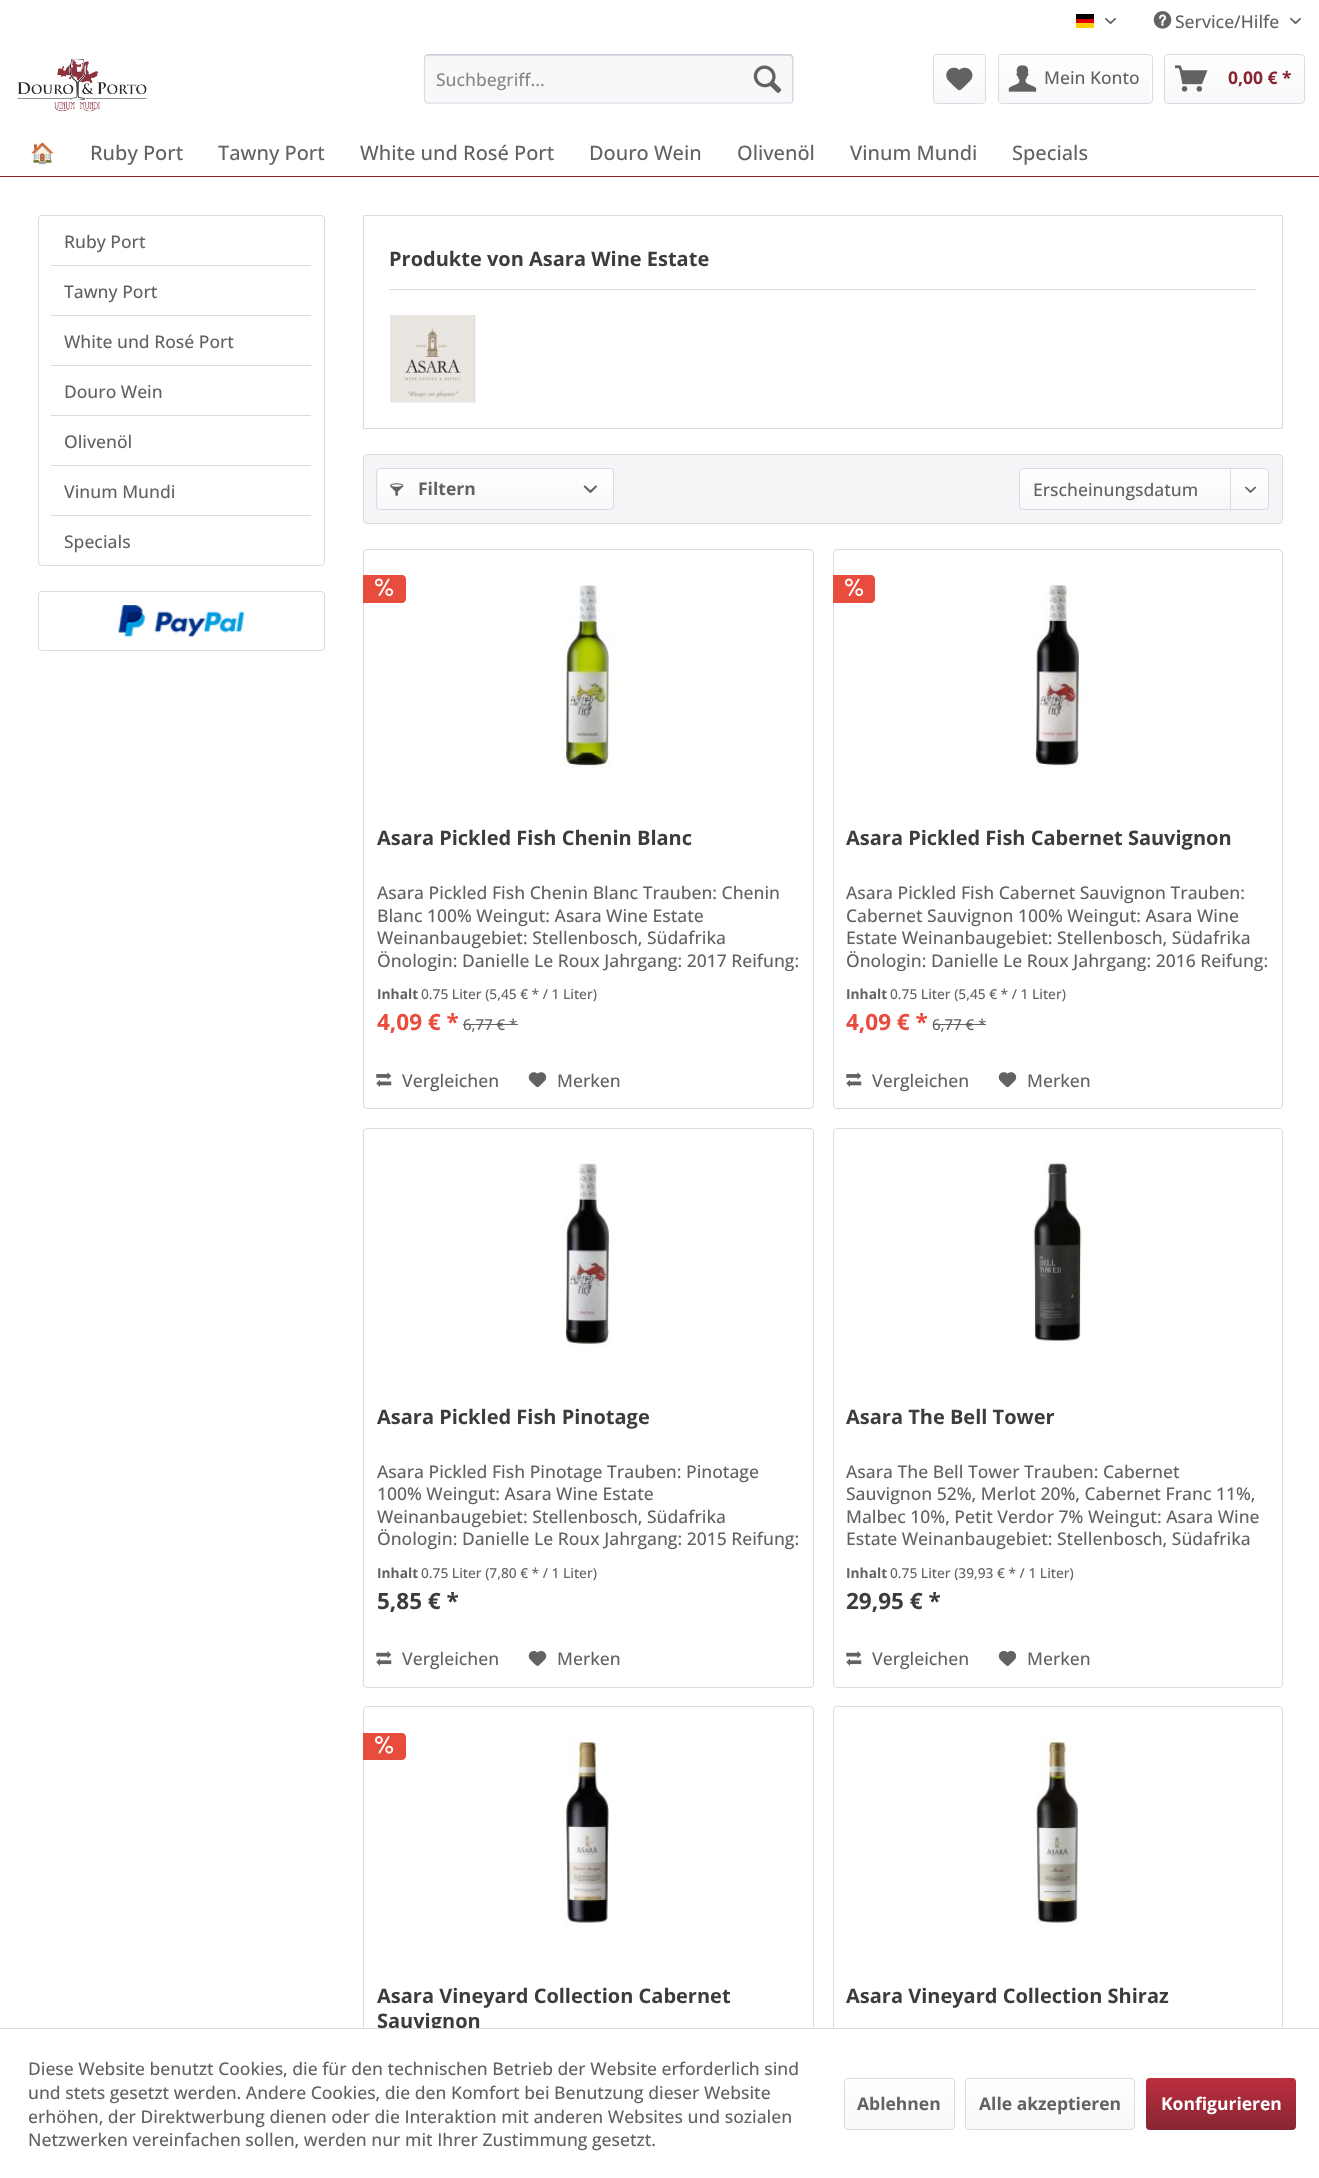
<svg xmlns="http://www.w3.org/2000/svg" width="1319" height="2178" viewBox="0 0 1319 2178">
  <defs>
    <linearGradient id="g1" gradientUnits="userSpaceOnUse" x1="959" y1="55" x2="959" y2="103"><stop offset="0" stop-color="#fff"/><stop offset="1" stop-color="#f8f8fa"/></linearGradient>
    <linearGradient id="g2" gradientUnits="userSpaceOnUse" x1="1075" y1="55" x2="1075" y2="103"><stop offset="0" stop-color="#fff"/><stop offset="1" stop-color="#f8f8fa"/></linearGradient>
    <linearGradient id="g3" gradientUnits="userSpaceOnUse" x1="1234" y1="55" x2="1234" y2="103"><stop offset="0" stop-color="#fff"/><stop offset="1" stop-color="#f8f8fa"/></linearGradient>
    <linearGradient id="g4" gradientUnits="userSpaceOnUse" x1="495" y1="469" x2="495" y2="509"><stop offset="0" stop-color="#fff"/><stop offset="1" stop-color="#f8f8fa"/></linearGradient>
    <linearGradient id="g5" gradientUnits="userSpaceOnUse" x1="1144" y1="469" x2="1144" y2="509"><stop offset="0" stop-color="#fff"/><stop offset="1" stop-color="#f8f8fa"/></linearGradient>
    <clipPath id="clip1"><path d="M376 881h424v90H376z"/></clipPath>
    <clipPath id="clip2"><path d="M846 881h423v90H846z"/></clipPath>
    <linearGradient id="g6" gradientUnits="userSpaceOnUse" x1="899" y1="2079" x2="899" y2="2129"><stop offset="0" stop-color="#fff"/><stop offset="1" stop-color="#f8f8fa"/></linearGradient>
    <linearGradient id="g7" gradientUnits="userSpaceOnUse" x1="1050" y1="2079" x2="1050" y2="2129"><stop offset="0" stop-color="#fff"/><stop offset="1" stop-color="#f8f8fa"/></linearGradient>
    <linearGradient id="g8" gradientUnits="userSpaceOnUse" x1="1221" y1="2078" x2="1221" y2="2130"><stop offset="0" stop-color="#bd2e3f"/><stop offset="1" stop-color="#872632"/></linearGradient>
  </defs>
  <rect width="100%" height="100%" fill="#fff"/>
  <path d="M1076 14h18v5H1076z" fill="#000"/>
  <path d="M1076 19h18v4H1076z" fill="#d00"/>
  <path d="M1076 23h18v5H1076z" fill="#ffce00"/>
  <image x="1105" y="17" width="11" height="8" href="img/1.png"/>
  <image x="1153" y="11" width="19" height="18" href="img/2.png"/>
  <image x="1290" y="17" width="11" height="8" href="img/1.png"/>
  <image x="17" y="58" width="130" height="54" href="img/3.png"/>
  <rect x="424" y="54" width="370" height="50" rx="4" fill="#f8f8fa"/>
  <path d="M428 56H790C791 56 792 57 792 59V103C792 102 793 101 793 100V58C793 56 792 55 790 55H428C426 55 425 56 425 58V59C425 57 426 56 428 56Z" fill="#dadae5"/>
  <path d="M425.5 55.5L427.5 54.5H790L792 55.5" fill="none" stroke="#cbcbdb" stroke-width="1.2"/>
  <path d="M792 55.5L793 57.5V100L792 102L790 103H427.5L425.5 102L424.5 100V57.5L425.5 55.5" fill="none" stroke="#dadae5" stroke-width="1.2"/>
  <image x="753" y="65" width="29" height="28" href="img/4.png"/>
  <rect x="934" y="55" width="51" height="48" rx="2.5" fill="url(#g1)"/>
  <rect x="933.5" y="54.5" width="52" height="49" rx="3.5" fill="none" stroke="#dadae5"/>
  <image x="946" y="67" width="27" height="24" href="img/5.png"/>
  <rect x="999" y="55" width="152" height="48" rx="2.5" fill="url(#g2)"/>
  <rect x="998.5" y="54.5" width="154" height="49" rx="3.5" fill="none" stroke="#dadae5"/>
  <image x="1008" y="65" width="29" height="27" href="img/6.png"/>
  <rect x="1165" y="55" width="139" height="48" rx="2.5" fill="url(#g3)"/>
  <rect x="1164.5" y="54.5" width="140" height="49" rx="3.5" fill="none" stroke="#dadae5"/>
  <image x="1175" y="65" width="33" height="27" href="img/7.png"/>
  <path d="M0 176h1319v1H0z" fill="#872632"/>
  <rect x="38.5" y="215.5" width="286" height="350" rx="3.5" fill="none" stroke="#dadae5"/>
  <path d="M51 265h260v1H51z" fill="#dadae5"/>
  <path d="M51 315h260v1H51z" fill="#dadae5"/>
  <path d="M51 365h260v1H51z" fill="#dadae5"/>
  <path d="M51 415h260v1H51z" fill="#dadae5"/>
  <path d="M51 465h260v1H51z" fill="#dadae5"/>
  <path d="M51 515h260v1H51z" fill="#dadae5"/>
  <rect x="38.5" y="591.5" width="286" height="59" rx="3.5" fill="none" stroke="#dadae5"/>
  <image x="118" y="605" width="126" height="32" href="img/8.png"/>
  <path d="M363.5 215.5h919v213H363.5z" fill="none" stroke="#dadae5"/>
  <path d="M389 289h867v1H389z" fill="#dadae5"/>
  <image x="390" y="315" width="86" height="88" href="img/9.png"/>
  <rect x="363.5" y="454.5" width="919" height="69" rx="3.5" fill="#f5f5f8" stroke="#dadae5"/>
  <rect x="378" y="469" width="235" height="40" rx="2.5" fill="url(#g4)"/>
  <rect x="376.5" y="468.5" width="237" height="41" rx="3.5" fill="none" stroke="#dadae5"/>
  <image x="390" y="483" width="14" height="13" href="img/10.png"/>
  <image x="583" y="485" width="14" height="8" href="img/11.png"/>
  <rect x="1020" y="469" width="248" height="40" rx="2.5" fill="url(#g5)"/>
  <rect x="1019.5" y="468.5" width="249" height="41" rx="3.5" fill="none" stroke="#dadae5"/>
  <path d="M1230 469h1v41H1230z" fill="#dadae5"/>
  <image x="1245" y="486" width="11" height="7" href="img/12.png"/>
  <rect x="363.5" y="549.5" width="450" height="559" rx="3.5" fill="none" stroke="#dadae5"/>
  <path d="M363 575H402C404 575 406 577 406 579V599C406 601 404 603 402 603H363Z" fill="#e74c3c"/>
  <image x="375" y="578" width="19" height="19" href="img/13.png"/>
  <image x="565" y="584" width="55" height="185" href="img/14.png"/>
  <path d="M463 1024h55v1H463z" fill="#626262"/>
  <image x="376" y="1072" width="16" height="15" href="img/15.png"/>
  <image x="528" y="1072" width="19" height="16" href="img/16.png"/>
  <rect x="833.5" y="549.5" width="449" height="559" rx="3.5" fill="none" stroke="#dadae5"/>
  <path d="M833 575H871C873 575 875 577 875 579V599C875 601 873 603 871 603H833Z" fill="#e74c3c"/>
  <image x="845" y="578" width="19" height="19" href="img/13.png"/>
  <image x="1035" y="585" width="52" height="184" href="img/17.png"/>
  <path d="M933 1024h53v1H933z" fill="#626262"/>
  <image x="846" y="1072" width="16" height="15" href="img/15.png"/>
  <image x="998" y="1072" width="19" height="16" href="img/16.png"/>
  <rect x="363.5" y="1128.5" width="450" height="559" rx="3.5" fill="none" stroke="#dadae5"/>
  <image x="565" y="1163" width="53" height="185" href="img/18.png"/>
  <image x="376" y="1651" width="16" height="15" href="img/19.png"/>
  <image x="528" y="1650" width="19" height="16" href="img/20.png"/>
  <rect x="833.5" y="1128.5" width="449" height="559" rx="3.5" fill="none" stroke="#dadae5"/>
  <image x="1033" y="1161" width="54" height="185" href="img/21.png"/>
  <image x="846" y="1651" width="16" height="15" href="img/19.png"/>
  <image x="998" y="1650" width="19" height="16" href="img/20.png"/>
  <rect x="363.5" y="1706.5" width="450" height="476" rx="3.5" fill="none" stroke="#dadae5"/>
  <path d="M363 1733H402C404 1733 406 1735 406 1737V1756C406 1758 404 1760 402 1760H363Z" fill="#e74c3c"/>
  <image x="375" y="1736" width="19" height="18" href="img/22.png"/>
  <image x="565" y="1738" width="44" height="189" href="img/23.png"/>
  <rect x="833.5" y="1706.5" width="449" height="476" rx="3.5" fill="none" stroke="#dadae5"/>
  <image x="1035" y="1738" width="45" height="188" href="img/24.png"/>
  <text x="1175" y="28" font-family="Open Sans" font-size="17.5" font-weight="500" fill="#626262">Service/Hilfe</text>
  <text x="436" y="86" font-family="Open Sans" font-size="17.5" font-weight="500" fill="#888">Suchbegriff...</text>
  <text x="1044" y="84" font-family="Open Sans" font-size="17.5" font-weight="500" fill="#626262">Mein Konto</text>
  <text x="1228" y="84" font-family="Open Sans" font-size="17.5" font-weight="bold" fill="#872632">0,00 € *</text>
  <text x="30" y="160" font-family="Noto Color Emoji" font-size="20" fill="#626262">🏠</text>
  <g font-family="Open Sans" font-size="20" font-weight="500" fill="#626262">
    <text x="90" y="160">Ruby Port</text>
    <text x="218" y="160">Tawny Port</text>
    <text x="360" y="160">White und Rosé Port</text>
    <text x="589" y="160">Douro Wein</text>
    <text x="737" y="160">Olivenöl</text>
    <text x="850" y="160">Vinum Mundi</text>
    <text x="1012" y="160">Specials</text>
  </g>
  <g font-family="Open Sans" font-size="17.5" font-weight="500" fill="#626262">
    <text x="64" y="248">Ruby Port</text>
    <text x="64" y="298">Tawny Port</text>
    <text x="64" y="348">White und Rosé Port</text>
    <text x="64" y="398">Douro Wein</text>
    <text x="64" y="448">Olivenöl</text>
    <text x="64" y="498">Vinum Mundi</text>
    <text x="64" y="548">Specials</text>
  </g>
  <text x="389" y="266" font-family="Open Sans" font-size="20" font-weight="bold" fill="#3c3c3c">Produkte von Asara Wine Estate</text>
  <text x="418" y="495" font-family="Open Sans" font-size="17.5" font-weight="bold" fill="#626262">Filtern</text>
  <text x="1033" y="496" font-family="Open Sans" font-size="17.5" font-weight="500" fill="#626262">Erscheinungsdatum</text>
  <text x="377" y="845" font-family="Open Sans" font-size="20" font-weight="bold" fill="#3c3c3c">Asara Pickled Fish Chenin Blanc</text>
  <g font-family="Open Sans" font-size="17.5" font-weight="500" fill="#626262">
    <text x="377" y="899">Asara Pickled Fish Chenin Blanc Trauben: Chenin</text>
    <text x="377" y="922">Blanc 100% Weingut: Asara Wine Estate</text>
    <text x="377" y="944">Weinanbaugebiet: Stellenbosch, Südafrika</text>
  </g>
  <g clip-path="url(#clip1)">
    <text x="377" y="967" font-family="Open Sans" font-size="17.5" font-weight="500" fill="#626262">Önologin: Danielle Le Roux Jahrgang: 2017 Reifung:</text>
  </g>
  <text x="377" y="999" font-family="Open Sans" font-size="13.75" font-weight="bold" fill="#626262">Inhalt</text>
  <text x="421" y="999" font-family="Open Sans" font-size="13.75" font-weight="500" fill="#626262">0.75 Liter (5,45 € * / 1 Liter)</text>
  <text x="377" y="1030" font-family="Open Sans" font-size="22.5" font-weight="bold" fill="#e74c3c">4,09 € *</text>
  <text x="463" y="1030" font-family="Open Sans" font-size="15" font-weight="500" fill="#626262">6,77 € *</text>
  <g font-family="Open Sans" font-size="17.5" font-weight="500" fill="#626262">
    <text x="402" y="1087">Vergleichen</text>
    <text x="557" y="1087">Merken</text>
  </g>
  <text x="846" y="845" font-family="Open Sans" font-size="20" font-weight="bold" fill="#3c3c3c">Asara Pickled Fish Cabernet Sauvignon</text>
  <g font-family="Open Sans" font-size="17.5" font-weight="500" fill="#626262">
    <text x="846" y="899">Asara Pickled Fish Cabernet Sauvignon Trauben:</text>
    <text x="846" y="922">Cabernet Sauvignon 100% Weingut: Asara Wine</text>
    <text x="846" y="944">Estate Weinanbaugebiet: Stellenbosch, Südafrika</text>
  </g>
  <g clip-path="url(#clip2)">
    <text x="846" y="967" font-family="Open Sans" font-size="17.5" font-weight="500" fill="#626262">Önologin: Danielle Le Roux Jahrgang: 2016 Reifung:</text>
  </g>
  <text x="846" y="999" font-family="Open Sans" font-size="13.75" font-weight="bold" fill="#626262">Inhalt</text>
  <text x="890" y="999" font-family="Open Sans" font-size="13.75" font-weight="500" fill="#626262">0.75 Liter (5,45 € * / 1 Liter)</text>
  <text x="846" y="1030" font-family="Open Sans" font-size="22.5" font-weight="bold" fill="#e74c3c">4,09 € *</text>
  <text x="932" y="1030" font-family="Open Sans" font-size="15" font-weight="500" fill="#626262">6,77 € *</text>
  <g font-family="Open Sans" font-size="17.5" font-weight="500" fill="#626262">
    <text x="872" y="1087">Vergleichen</text>
    <text x="1027" y="1087">Merken</text>
  </g>
  <text x="377" y="1424" font-family="Open Sans" font-size="20" font-weight="bold" fill="#3c3c3c">Asara Pickled Fish Pinotage</text>
  <g font-family="Open Sans" font-size="17.5" font-weight="500" fill="#626262">
    <text x="377" y="1478">Asara Pickled Fish Pinotage Trauben: Pinotage</text>
    <text x="377" y="1500">100% Weingut: Asara Wine Estate</text>
    <text x="377" y="1523">Weinanbaugebiet: Stellenbosch, Südafrika</text>
    <text x="377" y="1545">Önologin: Danielle Le Roux Jahrgang: 2015 Reifung:</text>
  </g>
  <text x="377" y="1578" font-family="Open Sans" font-size="13.75" font-weight="bold" fill="#626262">Inhalt</text>
  <text x="421" y="1578" font-family="Open Sans" font-size="13.75" font-weight="500" fill="#626262">0.75 Liter (7,80 € * / 1 Liter)</text>
  <text x="377" y="1609" font-family="Open Sans" font-size="22.5" font-weight="bold" fill="#3c3c3c">5,85 € *</text>
  <g font-family="Open Sans" font-size="17.5" font-weight="500" fill="#626262">
    <text x="402" y="1665">Vergleichen</text>
    <text x="557" y="1665">Merken</text>
  </g>
  <text x="846" y="1424" font-family="Open Sans" font-size="20" font-weight="bold" fill="#3c3c3c">Asara The Bell Tower</text>
  <g font-family="Open Sans" font-size="17.5" font-weight="500" fill="#626262">
    <text x="846" y="1478">Asara The Bell Tower Trauben: Cabernet</text>
    <text x="846" y="1500">Sauvignon 52%, Merlot 20%, Cabernet Franc 11%,</text>
    <text x="846" y="1523">Malbec 10%, Petit Verdor 7% Weingut: Asara Wine</text>
    <text x="846" y="1545">Estate Weinanbaugebiet: Stellenbosch, Südafrika</text>
  </g>
  <text x="846" y="1578" font-family="Open Sans" font-size="13.75" font-weight="bold" fill="#626262">Inhalt</text>
  <text x="890" y="1578" font-family="Open Sans" font-size="13.75" font-weight="500" fill="#626262">0.75 Liter (39,93 € * / 1 Liter)</text>
  <text x="846" y="1609" font-family="Open Sans" font-size="22.5" font-weight="bold" fill="#3c3c3c">29,95 € *</text>
  <g font-family="Open Sans" font-size="17.5" font-weight="500" fill="#626262">
    <text x="872" y="1665">Vergleichen</text>
    <text x="1027" y="1665">Merken</text>
  </g>
  <g font-family="Open Sans" font-size="20" font-weight="bold" fill="#3c3c3c">
    <text x="377" y="2003">Asara Vineyard Collection Cabernet</text>
    <text x="377" y="2028">Sauvignon</text>
    <text x="846" y="2003">Asara Vineyard Collection Shiraz</text>
  </g>
  <path d="M363 2029h920v149H363z" fill="#fff"/>
  <path d="M0 2028h1319v1H0z" fill="#dadae5"/>
  <g font-family="Open Sans" font-size="17.5" font-weight="500" fill="#626262">
    <text x="28" y="2075">Diese Website benutzt Cookies, die für den technischen Betrieb der Website erforderlich sind</text>
    <text x="28" y="2099">und stets gesetzt werden. Andere Cookies, die den Komfort bei Benutzung dieser Website</text>
    <text x="28" y="2123">erhöhen, der Direktwerbung dienen oder die Interaktion mit anderen Websites und sozialen</text>
    <text x="28" y="2146">Netzwerken vereinfachen sollen, werden nur mit Ihrer Zustimmung gesetzt.</text>
  </g>
  <rect x="845" y="2079" width="109" height="50" rx="2.5" fill="url(#g6)"/>
  <rect x="844.5" y="2078.5" width="110" height="51" rx="3.5" fill="none" stroke="#dadae5"/>
  <text x="857" y="2110" font-family="Open Sans" font-size="17.5" font-weight="bold" fill="#626262">Ablehnen</text>
  <rect x="966" y="2079" width="168" height="50" rx="2.5" fill="url(#g7)"/>
  <rect x="965.5" y="2078.5" width="169" height="51" rx="3.5" fill="none" stroke="#dadae5"/>
  <text x="979" y="2110" font-family="Open Sans" font-size="17.5" font-weight="bold" fill="#626262">Alle akzeptieren</text>
  <rect x="1146" y="2078" width="150" height="52" rx="4" fill="url(#g8)"/>
  <text x="1161" y="2110" font-family="Open Sans" font-size="17.5" font-weight="bold" fill="#fff">Konfigurieren</text>
</svg>
